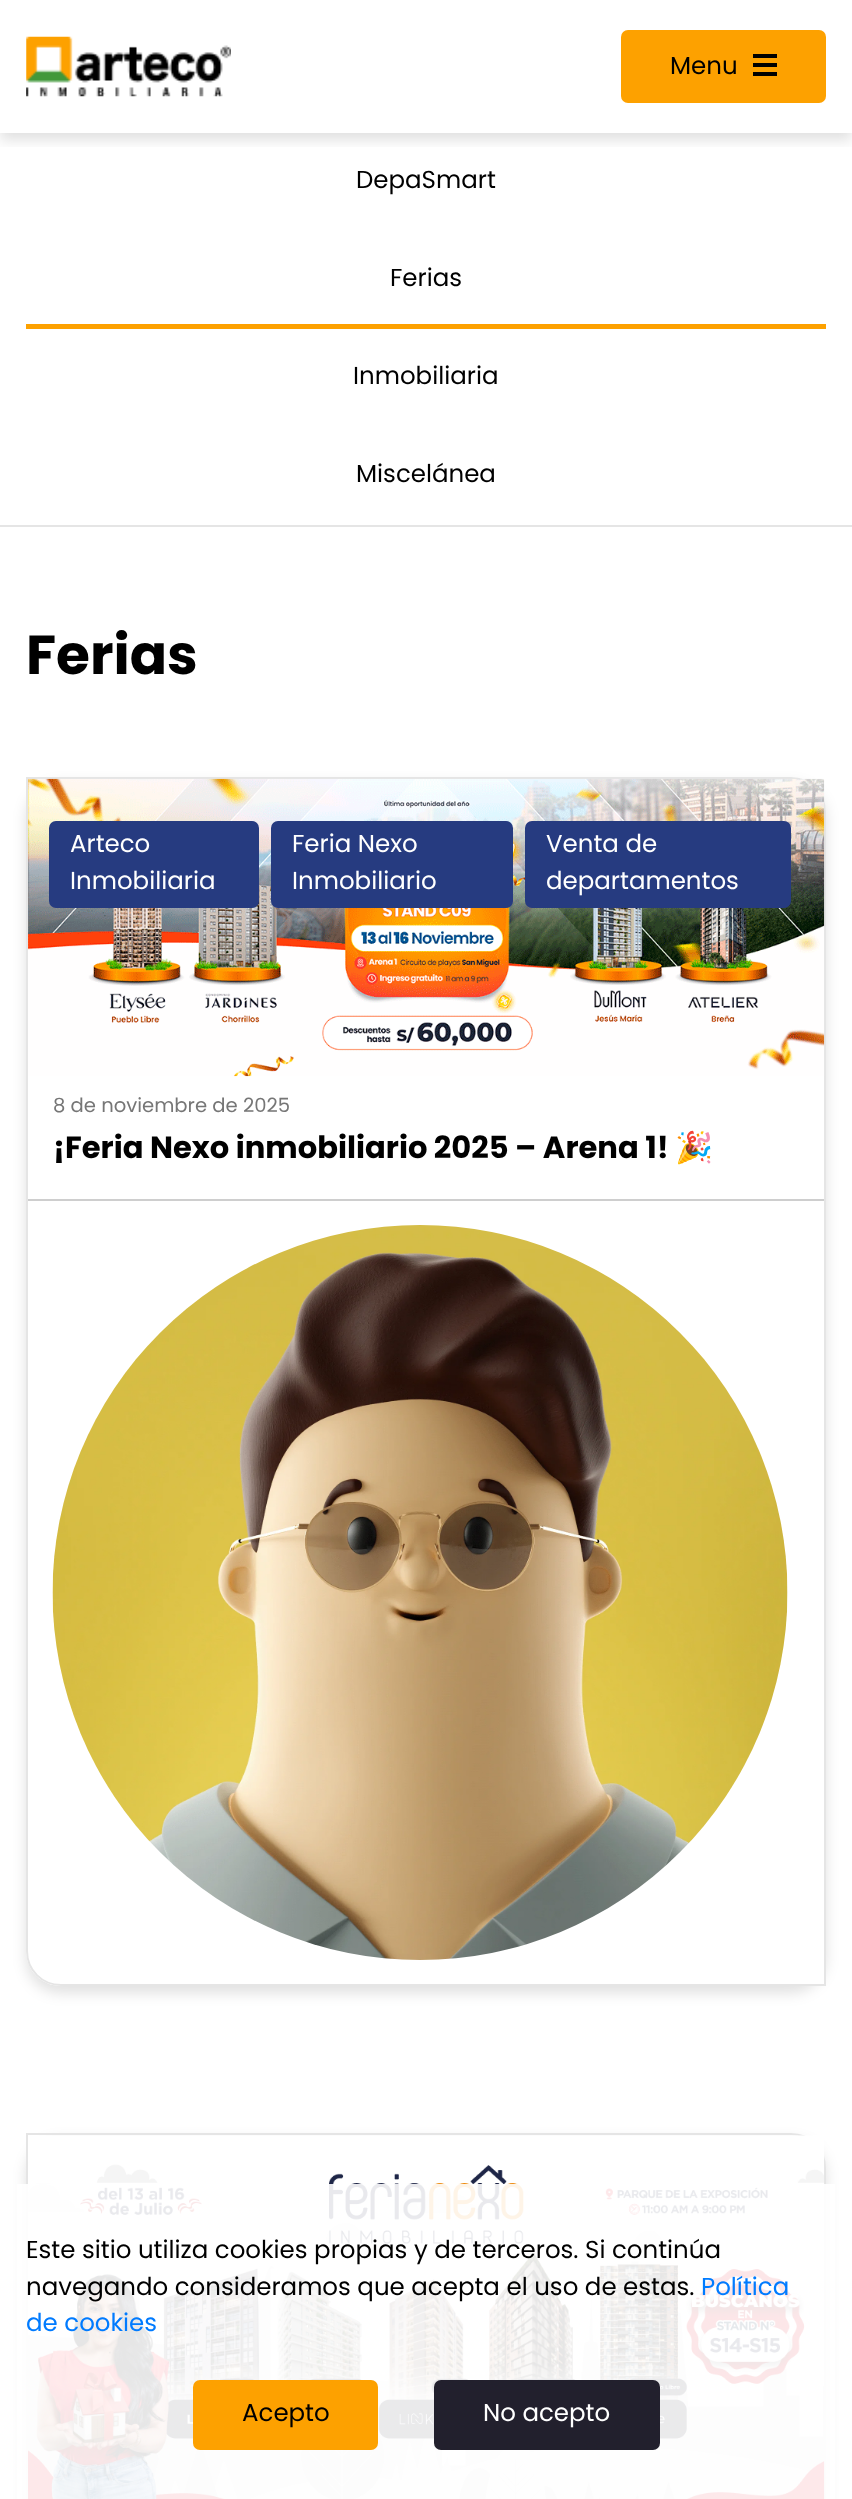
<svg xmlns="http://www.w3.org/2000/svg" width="852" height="2499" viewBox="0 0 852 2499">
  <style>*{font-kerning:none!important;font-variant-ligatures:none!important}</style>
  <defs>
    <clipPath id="clip1"><path d="M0 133h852v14H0z"/></clipPath>
    <clipPath id="clip2"><path d="M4 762H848V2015H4ZM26 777H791C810.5 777 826 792.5 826 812V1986H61C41.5 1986 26 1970.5 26 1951Z" clip-rule="evenodd"/></clipPath>
  </defs>
  <rect width="100%" height="100%" fill="#fff"/>
  <g clip-path="url(#clip1)">
    <path d="M0 7h852v133H0z" fill="#0000001f" filter="blur(7px)"/>
  </g>
  <image x="26" y="36" width="205" height="61" href="img/1.png"/>
  <rect x="621" y="30" width="205" height="73" rx="7" fill="#fda100"/>
  <path d="M753 63h24v4H753z" fill="#000"/>
  <path d="M753 54h24v4H753z" fill="#000"/>
  <path d="M753 72h24v4H753z" fill="#000"/>
  <path d="M0 525h852v2H0z" fill="#e5e5e5"/>
  <path d="M26 324h800v5H26z" fill="#fda100"/>
  <g clip-path="url(#clip2)">
    <rect x="26" y="784" width="800" height="1209" rx="35" fill="#0000001f" filter="blur(7px)"/>
  </g>
  <path d="M27 778H791C810 778 825 793 825 812V1985H61C42 1985 27 1970 27 1951Z" fill="none" stroke="#e5e5e5" stroke-width="2"/>
  <image x="28" y="778" width="797" height="299" href="img/2.png"/>
  <rect x="49" y="821" width="210" height="87" rx="7" fill="#263b80"/>
  <rect x="271" y="821" width="242" height="87" rx="7" fill="#263b80"/>
  <rect x="525" y="821" width="266" height="87" rx="7" fill="#263b80"/>
  <path d="M28 1199h796v2H28z" fill="#cecece"/>
  <image x="52" y="1225" width="736" height="735" href="img/3.png"/>
  <rect x="26" y="2140" width="800" height="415" rx="35" fill="#0000001f" filter="blur(7px)"/>
  <path d="M27 2134H791C810 2134 825 2149 825 2168V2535H61C42 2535 27 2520 27 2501Z" fill="none" stroke="#e5e5e5" stroke-width="2"/>
  <image x="28" y="2135" width="797" height="364" href="img/4.png"/>
  <path d="M17 2184h818v315H17z" fill="#ffffffe6"/>
  <rect x="193" y="2380" width="185" height="70" rx="7" fill="#fda100"/>
  <rect x="434" y="2380" width="226" height="70" rx="7" fill="#22202d"/>
  <g font-family="Poppins" font-size="24.5" fill="#000">
    <text x="670" y="74">Menu</text>
    <text x="356" y="188">DepaSmart</text>
    <text x="390" y="286">Ferias</text>
    <text x="353" y="384">Inmobiliaria</text>
    <text x="356" y="482">Miscelánea</text>
  </g>
  <text x="26" y="674" font-family="Poppins" font-size="55" font-weight="bold" fill="#000">Ferias</text>
  <g font-family="Poppins" font-size="24.5" fill="#fff">
    <text x="70" y="852">Arteco</text>
    <text x="70" y="889">Inmobiliaria</text>
    <text x="292" y="852">Feria Nexo</text>
    <text x="292" y="889">Inmobiliario</text>
    <text x="546" y="852">Venta de</text>
    <text x="546" y="889">departamentos</text>
  </g>
  <text x="53" y="1112" font-family="Poppins" font-size="19.6" fill="#767676">8 de noviembre de 2025</text>
  <text x="53" y="1158" font-family="Poppins" font-size="30.6" font-weight="bold" fill="#000">¡Feria Nexo inmobiliario 2025 – Arena 1!</text>
  <text x="675" y="1158" font-family="Noto Color Emoji" font-size="30.6" font-weight="bold" fill="#000">🎉</text>
  <g font-family="Poppins" font-size="24.5" fill="#000">
    <text x="26" y="2258">Este sitio utiliza cookies propias y de terceros. Si continúa</text>
    <text x="26" y="2295">navegando consideramos que acepta el uso de estas.</text>
  </g>
  <g font-family="Poppins" font-size="24.5" fill="#007bff">
    <text x="701" y="2295">Política</text>
    <text x="26" y="2331">de cookies</text>
  </g>
  <text x="242" y="2421" font-family="Poppins" font-size="24.5" fill="#000">Acepto</text>
  <text x="483" y="2421" font-family="Poppins" font-size="24.5" fill="#fff">No acepto</text>
</svg>
